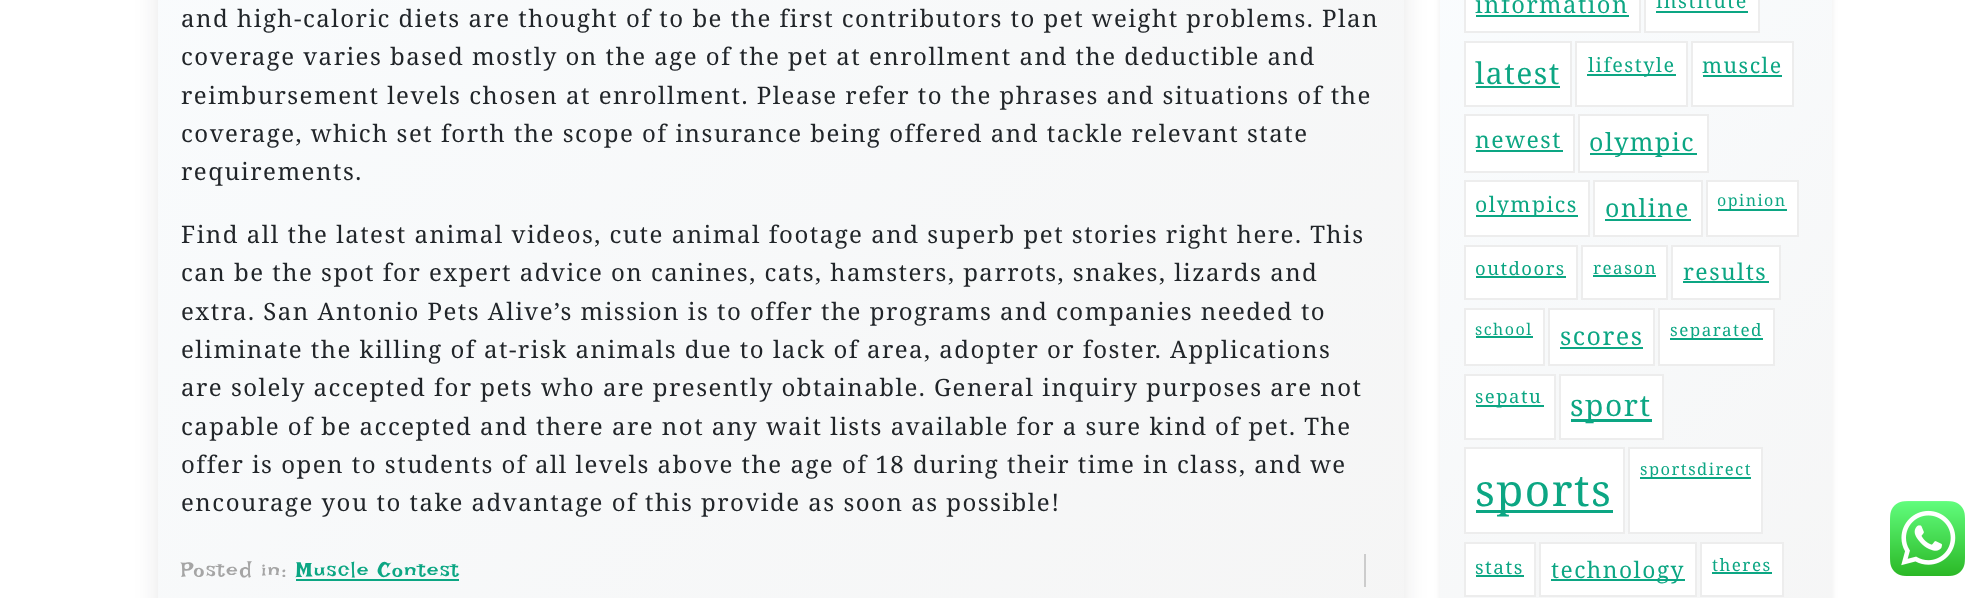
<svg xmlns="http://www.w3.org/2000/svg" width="1987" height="598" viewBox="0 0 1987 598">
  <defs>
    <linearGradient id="g1" gradientUnits="userSpaceOnUse" x1="1658" y1="440" x2="-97" y2="-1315"><stop offset="0" stop-color="#f5f5f5"/><stop offset="0.74" stop-color="#fafdff"/></linearGradient>
    <linearGradient id="g2" gradientUnits="userSpaceOnUse" x1="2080" y1="494" x2="1192" y2="-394"><stop offset="0" stop-color="#f5f5f5"/><stop offset="0.74" stop-color="#fafdff"/></linearGradient>
  </defs>
  <rect width="100%" height="100%" fill="#fff"/>
  <rect x="158" y="-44" width="1246" height="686" rx="8" fill="#11111a1a" filter="blur(12px)"/>
  <path d="M158 0h1246v598H158z" fill="url(#g1)"/>
  <path d="M1364 554h2v33H1364z" fill="#ccc"/>
  <path d="M296 579h163v2H296z" fill="#0ca683"/>
  <rect x="1440" y="-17" width="392" height="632" rx="8" fill="#00000012" filter="blur(3px)"/>
  <path d="M1440 0h392v598H1440z" fill="url(#g2)"/>
  <path d="M1465 -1h175v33H1465z" fill="#fff" stroke="#ededed" stroke-width="2"/>
  <path d="M1476 15h153v2H1476z" fill="#0ca683"/>
  <path d="M1645 -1h114v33H1645z" fill="#fff" stroke="#ededed" stroke-width="2"/>
  <path d="M1656 11h92v2H1656z" fill="#0ca683"/>
  <path d="M1465 42h106v64H1465z" fill="#fff" stroke="#ededed" stroke-width="2"/>
  <path d="M1476 86h84v2H1476z" fill="#0ca683"/>
  <path d="M1576 42h111v64H1576z" fill="#fff" stroke="#ededed" stroke-width="2"/>
  <path d="M1587 74h89v2H1587z" fill="#0ca683"/>
  <path d="M1692 42h101v64H1692z" fill="#fff" stroke="#ededed" stroke-width="2"/>
  <path d="M1703 75h79v2H1703z" fill="#0ca683"/>
  <path d="M1465 115h109v57H1465z" fill="#fff" stroke="#ededed" stroke-width="2"/>
  <path d="M1476 150h87v2H1476z" fill="#0ca683"/>
  <path d="M1579 115h129v57H1579z" fill="#fff" stroke="#ededed" stroke-width="2"/>
  <path d="M1590 153h107v2H1590z" fill="#0ca683"/>
  <path d="M1465 181h124v55H1465z" fill="#fff" stroke="#ededed" stroke-width="2"/>
  <path d="M1476 215h102v2H1476z" fill="#0ca683"/>
  <path d="M1594 181h108v55H1594z" fill="#fff" stroke="#ededed" stroke-width="2"/>
  <path d="M1605 219h86v2H1605z" fill="#0ca683"/>
  <path d="M1707 181h91v55H1707z" fill="#fff" stroke="#ededed" stroke-width="2"/>
  <path d="M1718 209h69v2H1718z" fill="#0ca683"/>
  <path d="M1465 246h112v53H1465z" fill="#fff" stroke="#ededed" stroke-width="2"/>
  <path d="M1476 276h90v2H1476z" fill="#0ca683"/>
  <path d="M1582 246h85v53H1582z" fill="#fff" stroke="#ededed" stroke-width="2"/>
  <path d="M1593 275h63v2H1593z" fill="#0ca683"/>
  <path d="M1672 246h108v53H1672z" fill="#fff" stroke="#ededed" stroke-width="2"/>
  <path d="M1683 281h86v2H1683z" fill="#0ca683"/>
  <path d="M1465 309h79v56H1465z" fill="#fff" stroke="#ededed" stroke-width="2"/>
  <path d="M1476 336h57v2H1476z" fill="#0ca683"/>
  <path d="M1549 309h105v56H1549z" fill="#fff" stroke="#ededed" stroke-width="2"/>
  <path d="M1560 347h83v2H1560z" fill="#0ca683"/>
  <path d="M1659 309h115v56H1659z" fill="#fff" stroke="#ededed" stroke-width="2"/>
  <path d="M1670 338h93v2H1670z" fill="#0ca683"/>
  <path d="M1465 375h90v64H1465z" fill="#fff" stroke="#ededed" stroke-width="2"/>
  <path d="M1476 405h68v2H1476z" fill="#0ca683"/>
  <path d="M1560 375h103v64H1560z" fill="#fff" stroke="#ededed" stroke-width="2"/>
  <path d="M1571 419h81v3H1571z" fill="#0ca683"/>
  <path d="M1629 448h133v85H1629z" fill="#fff" stroke="#ededed" stroke-width="2"/>
  <path d="M1640 477h111v2H1640z" fill="#0ca683"/>
  <path d="M1465 448h159v85H1465z" fill="#fff" stroke="#ededed" stroke-width="2"/>
  <path d="M1476 510h137v3H1476z" fill="#0ca683"/>
  <path d="M1465 543h70v53H1465z" fill="#fff" stroke="#ededed" stroke-width="2"/>
  <path d="M1476 575h48v2H1476z" fill="#0ca683"/>
  <path d="M1540 543h156v53H1540z" fill="#fff" stroke="#ededed" stroke-width="2"/>
  <path d="M1551 579h134v2H1551z" fill="#0ca683"/>
  <path d="M1701 543h82v53H1701z" fill="#fff" stroke="#ededed" stroke-width="2"/>
  <path d="M1712 572h60v2H1712z" fill="#0ca683"/>
  <image x="1890" y="501" width="75" height="75" href="img/1.png"/>
  <g font-family="Noto Serif" font-size="24" letter-spacing="1.5" fill="#212529">
    <text x="181" y="27">and high-caloric diets are thought of to be the first contributors to pet weight problems. Plan</text>
    <text x="181" y="65">coverage varies based mostly on the age of the pet at enrollment and the deductible and</text>
    <text x="181" y="104">reimbursement levels chosen at enrollment. Please refer to the phrases and situations of the</text>
    <text x="181" y="142">coverage, which set forth the scope of insurance being offered and tackle relevant state</text>
    <text x="181" y="180">requirements.</text>
    <text x="181" y="243">Find all the latest animal videos, cute animal footage and superb pet stories right here. This</text>
    <text x="181" y="281">can be the spot for expert advice on canines, cats, hamsters, parrots, snakes, lizards and</text>
    <text x="181" y="320">extra. San Antonio Pets Alive’s mission is to offer the programs and companies needed to</text>
    <text x="181" y="358">eliminate the killing of at-risk animals due to lack of area, adopter or foster. Applications</text>
    <text x="181" y="396">are solely accepted for pets who are presently obtainable. General inquiry purposes are not</text>
    <text x="181" y="435">capable of be accepted and there are not any wait lists available for a sure kind of pet. The</text>
    <text x="181" y="473">offer is open to students of all levels above the age of 18 during their time in class, and we</text>
    <text x="181" y="511">encourage you to take advantage of this provide as soon as possible!</text>
  </g>
  <text x="181" y="577" font-family="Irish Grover" font-size="21" letter-spacing="1.5" fill="#a5a5a5">Posted in:</text>
  <text x="296" y="577" font-family="Irish Grover" font-size="21" letter-spacing="1.5" fill="#0ca683">Muscle Contest</text>
  <text x="1475" y="13" font-family="Noto Serif" font-size="23.75" letter-spacing="1.5" fill="#0ca683">information</text>
  <text x="1656" y="8" font-family="Noto Serif" font-size="19.75" letter-spacing="1.5" fill="#0ca683">institute</text>
  <text x="1475" y="84" font-family="Noto Serif" font-size="30" letter-spacing="1.5" fill="#0ca683">latest</text>
  <text x="1588" y="72" font-family="Noto Serif" font-size="19.75" letter-spacing="1.5" fill="#0ca683">lifestyle</text>
  <text x="1702" y="73" font-family="Noto Serif" font-size="21.25" letter-spacing="1.5" fill="#0ca683">muscle</text>
  <text x="1475" y="148" font-family="Noto Serif" font-size="23" letter-spacing="1.5" fill="#0ca683">newest</text>
  <text x="1589" y="151" font-family="Noto Serif" font-size="25" letter-spacing="1.5" fill="#0ca683">olympic</text>
  <text x="1475" y="212" font-family="Noto Serif" font-size="21.25" letter-spacing="1.5" fill="#0ca683">olympics</text>
  <text x="1605" y="217" font-family="Noto Serif" font-size="25" letter-spacing="1.5" fill="#0ca683">online</text>
  <text x="1717" y="206" font-family="Noto Serif" font-size="16" letter-spacing="1.5" fill="#0ca683">opinion</text>
  <text x="1475" y="275" font-family="Noto Serif" font-size="18.5" letter-spacing="1.5" fill="#0ca683">outdoors</text>
  <text x="1593" y="274" font-family="Noto Serif" font-size="17" letter-spacing="1.5" fill="#0ca683">reason</text>
  <text x="1683" y="280" font-family="Noto Serif" font-size="23" letter-spacing="1.5" fill="#0ca683">results</text>
  <text x="1475" y="335" font-family="Noto Serif" font-size="16" letter-spacing="1.5" fill="#0ca683">school</text>
  <text x="1560" y="345" font-family="Noto Serif" font-size="25" letter-spacing="1.5" fill="#0ca683">scores</text>
  <text x="1670" y="336" font-family="Noto Serif" font-size="17" letter-spacing="1.5" fill="#0ca683">separated</text>
  <text x="1475" y="403" font-family="Noto Serif" font-size="18.5" letter-spacing="1.5" fill="#0ca683">sepatu</text>
  <text x="1570" y="416" font-family="Noto Serif" font-size="30" letter-spacing="1.5" fill="#0ca683">sport</text>
  <text x="1640" y="475" font-family="Noto Serif" font-size="16.5" letter-spacing="1.5" fill="#0ca683">sportsdirect</text>
  <text x="1475" y="506" font-family="Noto Serif" font-size="44" letter-spacing="1.5" fill="#0ca683">sports</text>
  <text x="1475" y="574" font-family="Noto Serif" font-size="19" letter-spacing="1.5" fill="#0ca683">stats</text>
  <text x="1551" y="578" font-family="Noto Serif" font-size="22.75" letter-spacing="1.5" fill="#0ca683">technology</text>
  <text x="1712" y="571" font-family="Noto Serif" font-size="17" letter-spacing="1.5" fill="#0ca683">theres</text>
</svg>
